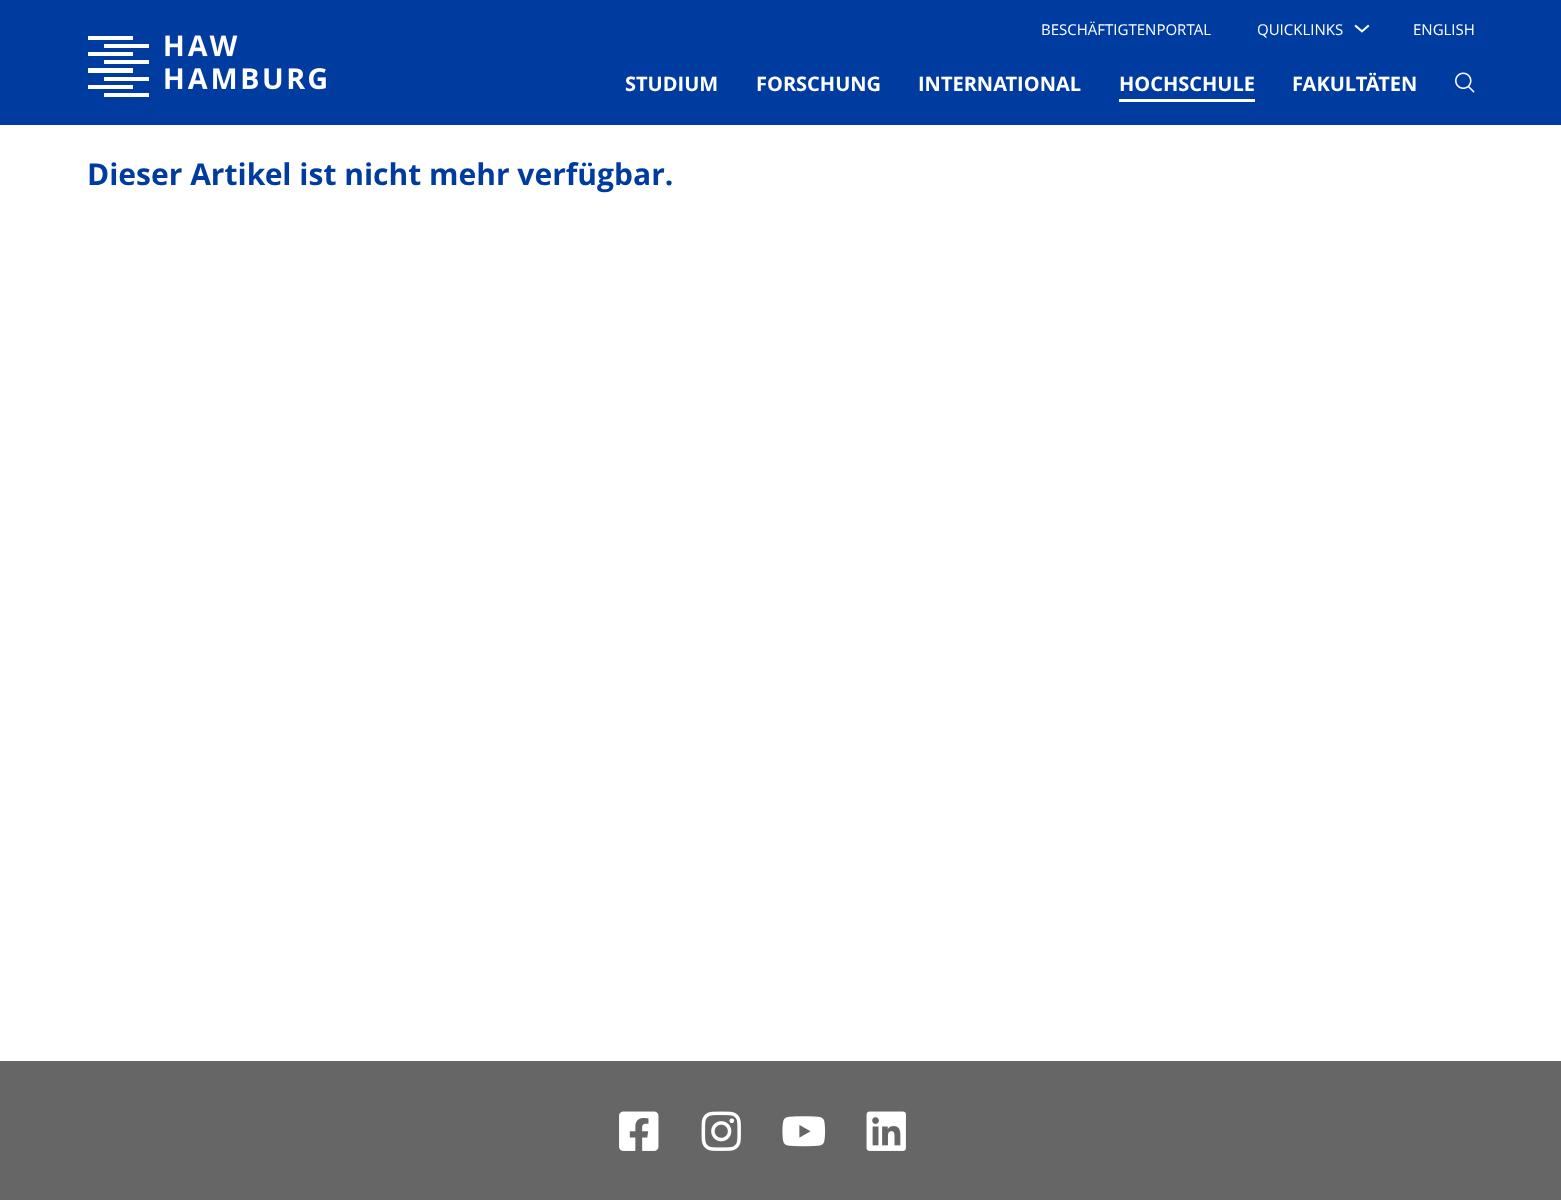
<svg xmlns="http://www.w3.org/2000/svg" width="1561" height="1200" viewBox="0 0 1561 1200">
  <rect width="100%" height="100%" fill="#fff"/>
  <path d="M0 0h1561v125H0z" fill="#003ca0"/>
  <image x="88" y="35" width="238" height="62" href="img/1.png"/>
  <image x="1354" y="24" width="16" height="9" href="img/2.png"/>
  <path d="M1119 99h136v3H1119z" fill="#fff"/>
  <image x="1455" y="72" width="20" height="21" href="img/3.png"/>
  <path d="M0 1061h1561v139H0z" fill="#666"/>
  <image x="619" y="1111" width="40" height="40" href="img/4.png"/>
  <image x="701" y="1111" width="40" height="40" href="img/5.png"/>
  <image x="782" y="1116" width="44" height="31" href="img/6.png"/>
  <image x="866" y="1111" width="40" height="40" href="img/7.png"/>
  <g font-family="Open Sans" font-size="15" fill="#fff">
    <text x="1041" y="35">BESCHÄFTIGTENPORTAL</text>
    <text x="1257" y="35">QUICKLINKS</text>
    <text x="1413" y="35">ENGLISH</text>
  </g>
  <g font-family="Open Sans" font-size="20" font-weight="bold" fill="#fff">
    <text x="625" y="91">STUDIUM</text>
    <text x="756" y="91">FORSCHUNG</text>
    <text x="918" y="91">INTERNATIONAL</text>
    <text x="1119" y="91">HOCHSCHULE</text>
    <text x="1292" y="91">FAKULTÄTEN</text>
  </g>
  <text x="87" y="185" font-family="Open Sans" font-size="30" font-weight="bold" fill="#003ca0">Dieser Artikel ist nicht mehr verfügbar.</text>
</svg>
